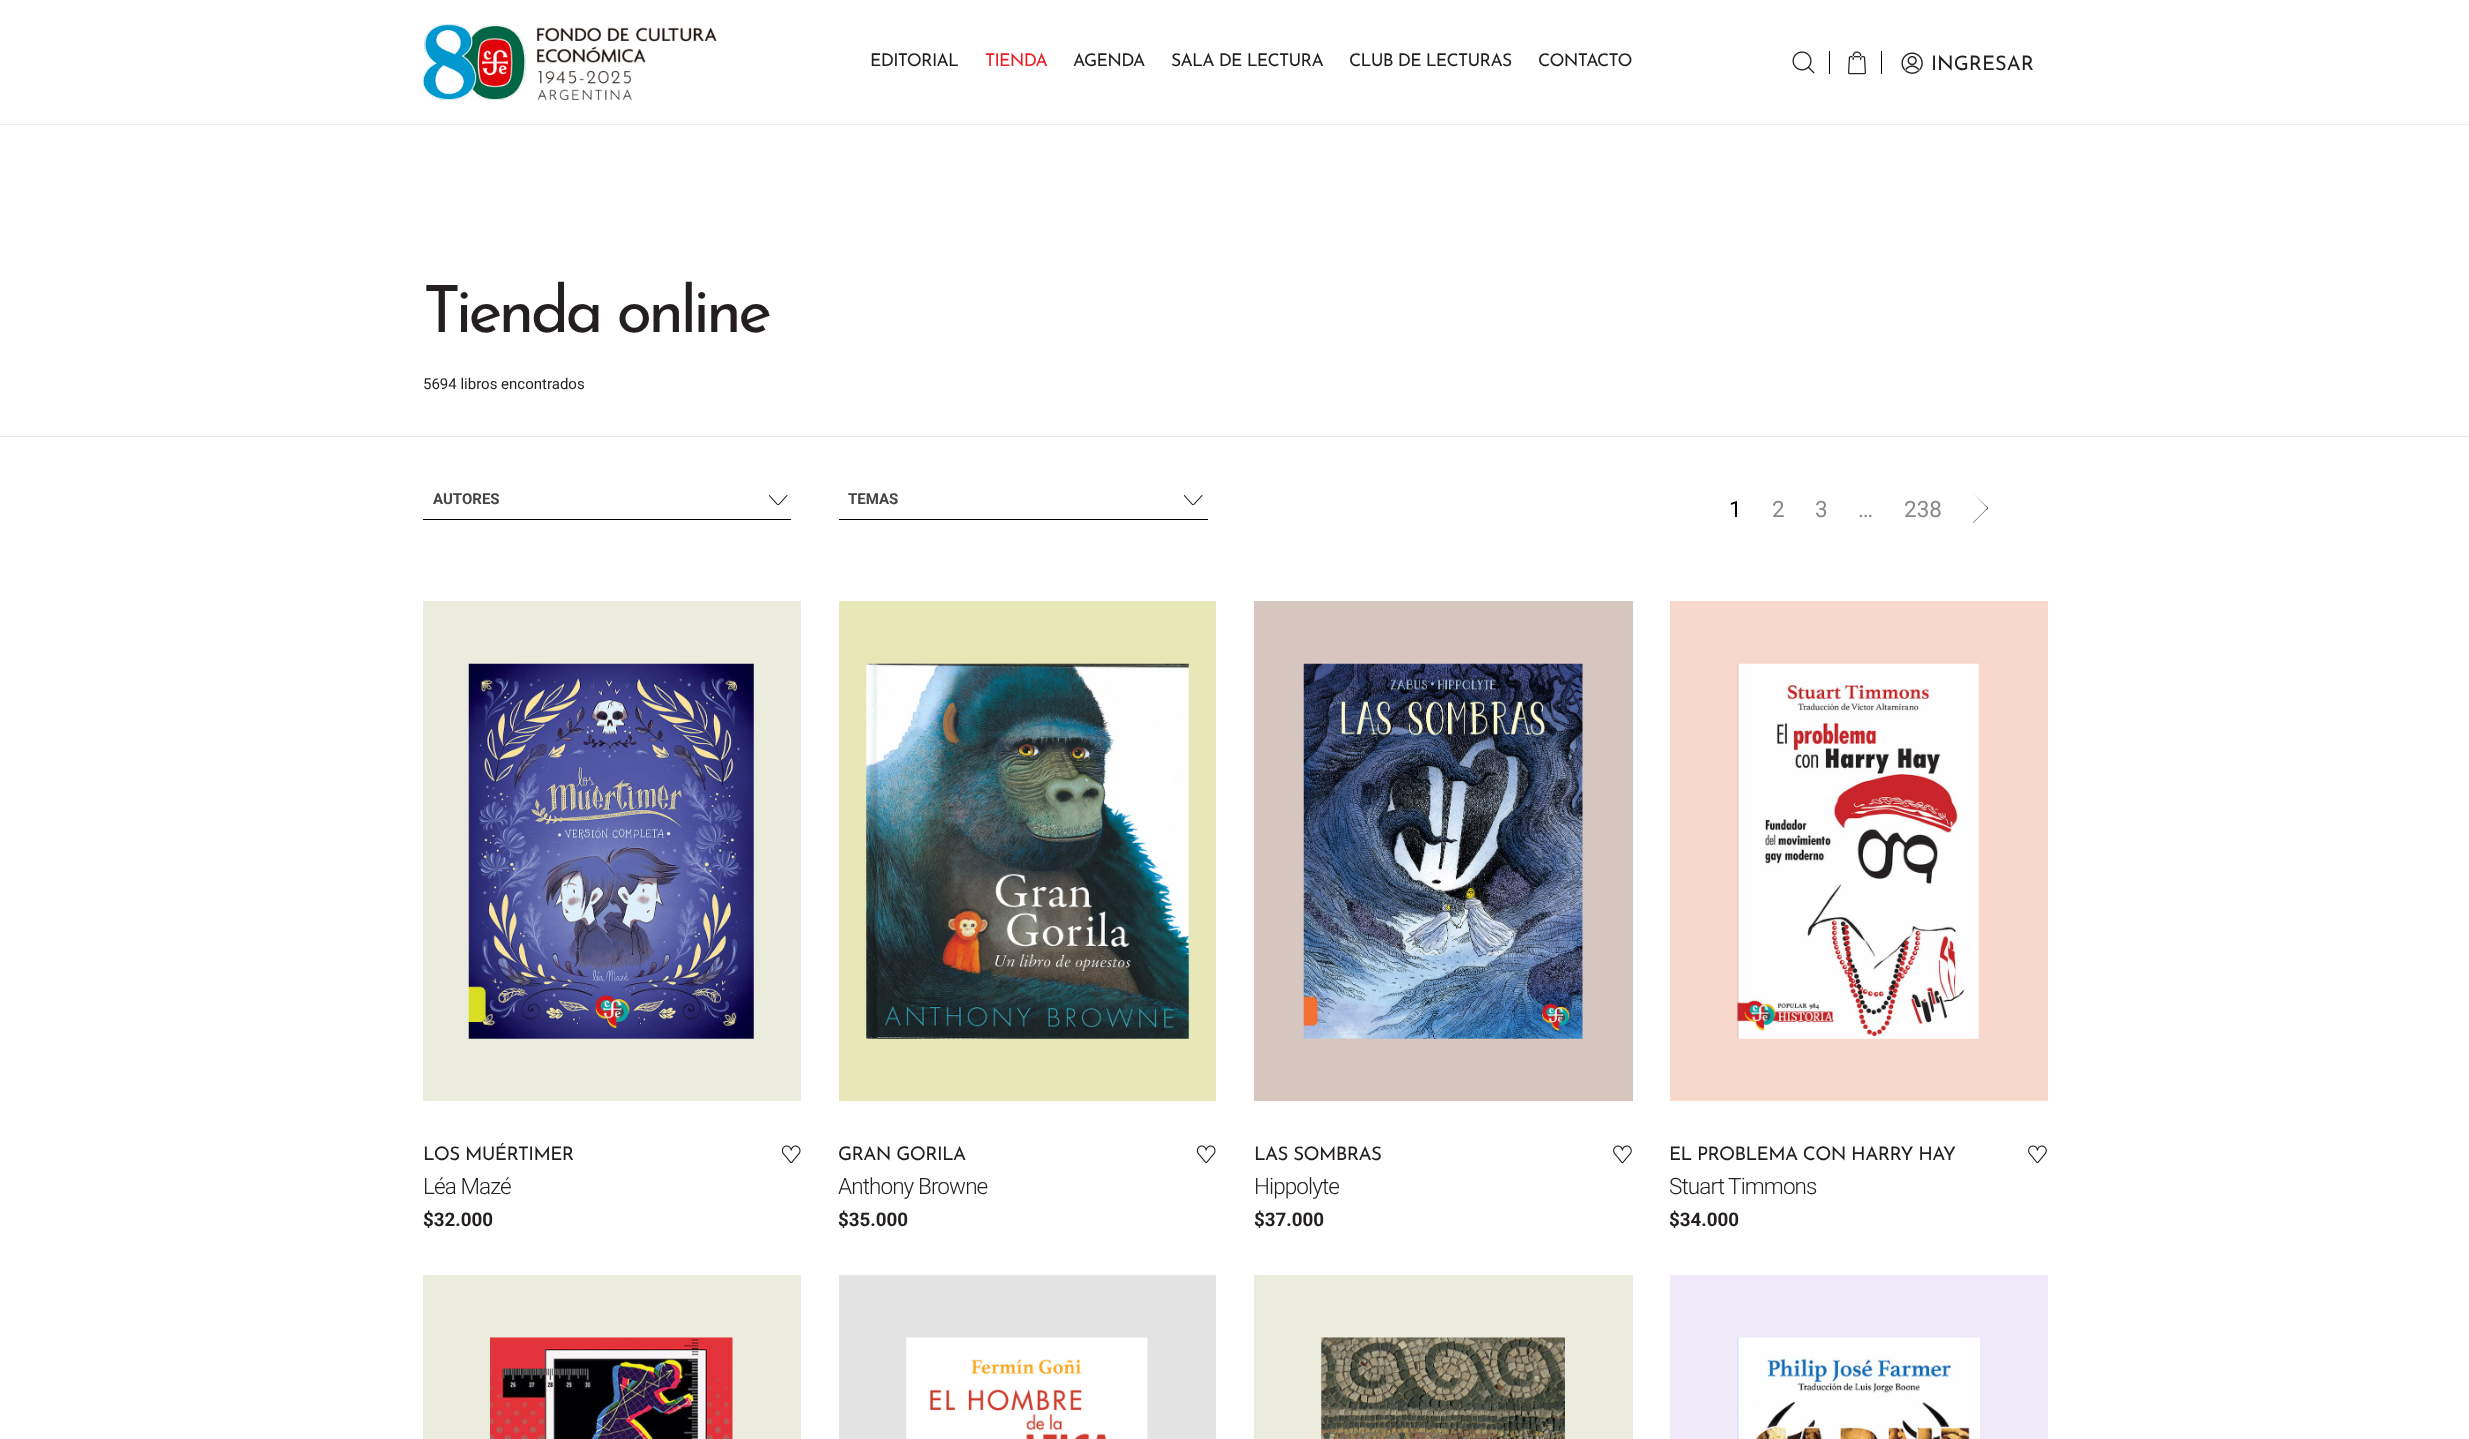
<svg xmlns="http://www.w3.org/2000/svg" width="2469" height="1439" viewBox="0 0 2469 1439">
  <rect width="100%" height="100%" fill="#fff"/>
  <path d="M0 124h2469v1H0z" fill="#ededed"/>
  <image x="422" y="23" width="295" height="77" href="img/1.png"/>
  <image x="1792" y="51" width="23" height="23" href="img/2.png"/>
  <path d="M1829 51h1v23H1829z" fill="#000"/>
  <image x="1848" y="51" width="18" height="24" href="img/3.png"/>
  <path d="M1881 51h1v23H1881z" fill="#000"/>
  <image x="1901" y="52" width="22" height="22" href="img/4.png"/>
  <path d="M0 436h2469v1H0z" fill="#e7e7e7"/>
  <path d="M423 519h368v1H423z" fill="#000"/>
  <image x="769" y="495" width="19" height="10" href="img/5.png"/>
  <path d="M839 519h369v1H839z" fill="#000"/>
  <image x="1184" y="495" width="19" height="10" href="img/5.png"/>
  <path d="M1973 493.5L1985.5 505.5C1989 509 1989 507.5 1985.5 510.5L1973 523V522.5L1987.5 508Z" fill="#000"/>
  <path d="M423 601h378v500H423z" fill="#ececde"/>
  <image x="468" y="663" width="286" height="376" href="img/6.png"/>
  <image x="781" y="1145" width="20" height="19" href="img/7.png"/>
  <path d="M839 601h377v500H839z" fill="#e7e7b8"/>
  <image x="866" y="663" width="323" height="376" href="img/8.png"/>
  <image x="1196" y="1145" width="20" height="19" href="img/7.png"/>
  <path d="M1254 601h379v500H1254z" fill="#d6c6bf"/>
  <image x="1303" y="663" width="280" height="376" href="img/9.png"/>
  <image x="1613" y="1145" width="19" height="19" href="img/10.png"/>
  <path d="M1670 601h378v500H1670z" fill="#f8d8ca"/>
  <image x="1737" y="663" width="242" height="376" href="img/11.png"/>
  <image x="2028" y="1145" width="19" height="19" href="img/10.png"/>
  <path d="M423 1275h378v164H423z" fill="#ececde"/>
  <image x="490" y="1337" width="243" height="102" href="img/12.png"/>
  <path d="M839 1275h377v164H839z" fill="#e3e3e3"/>
  <image x="906" y="1337" width="242" height="102" href="img/13.png"/>
  <path d="M1254 1275h379v164H1254z" fill="#ececde"/>
  <image x="1321" y="1337" width="244" height="102" href="img/14.png"/>
  <path d="M1670 1275h378v164H1670z" fill="#f0e9f8"/>
  <image x="1737" y="1337" width="243" height="102" href="img/15.png"/>
  <text x="870" y="66" font-family="Josefin Sans" font-size="17.5" letter-spacing="-0.7" fill="#231f20">EDITORIAL</text>
  <text x="985" y="66" font-family="Josefin Sans" font-size="17.5" letter-spacing="-0.7" fill="#ec1d24">TIENDA</text>
  <g font-family="Josefin Sans" font-size="17.5" letter-spacing="-0.7" fill="#231f20">
    <text x="1073" y="66">AGENDA</text>
    <text x="1171" y="66">SALA DE LECTURA</text>
    <text x="1349" y="66">CLUB DE LECTURAS</text>
    <text x="1538" y="66">CONTACTO</text>
  </g>
  <text x="1931" y="70" font-family="Josefin Sans" font-size="20" fill="#231f20">INGRESAR</text>
  <text x="423" y="332" font-family="Josefin Sans" font-size="65" letter-spacing="-3.75" fill="#231f20">Tienda online</text>
  <text x="423" y="389" font-family="Roboto" font-size="15" fill="#231f20">5694 libros encontrados</text>
  <g font-family="Roboto" font-size="15" font-weight="bold" fill="#444">
    <text x="433" y="504">AUTORES</text>
    <text x="848" y="504">TEMAS</text>
  </g>
  <text x="1729" y="517" font-family="Roboto" font-size="22.5" fill="#000">1</text>
  <g font-family="Roboto" font-size="22.5" fill="#888">
    <text x="1772" y="517">2</text>
    <text x="1815" y="517">3</text>
    <text x="1858" y="517">…</text>
    <text x="1904" y="517">238</text>
  </g>
  <text x="423" y="1160" font-family="Josefin Sans" font-size="18.75" letter-spacing="-0.6" fill="#231f20">LOS MUÉRTIMER</text>
  <text x="423" y="1194" font-family="Roboto" font-size="22.5" font-weight="300" letter-spacing="-0.9" fill="#231f20">Léa Mazé</text>
  <text x="423" y="1226" font-family="Roboto" font-size="18.75" font-weight="bold" fill="#231f20">$32.000</text>
  <text x="838" y="1160" font-family="Josefin Sans" font-size="18.75" letter-spacing="-0.6" fill="#231f20">GRAN GORILA</text>
  <text x="838" y="1194" font-family="Roboto" font-size="22.5" font-weight="300" letter-spacing="-0.9" fill="#231f20">Anthony Browne</text>
  <text x="838" y="1226" font-family="Roboto" font-size="18.75" font-weight="bold" fill="#231f20">$35.000</text>
  <text x="1254" y="1160" font-family="Josefin Sans" font-size="18.75" letter-spacing="-0.6" fill="#231f20">LAS SOMBRAS</text>
  <text x="1254" y="1194" font-family="Roboto" font-size="22.5" font-weight="300" letter-spacing="-0.9" fill="#231f20">Hippolyte</text>
  <text x="1254" y="1226" font-family="Roboto" font-size="18.75" font-weight="bold" fill="#231f20">$37.000</text>
  <text x="1669" y="1160" font-family="Josefin Sans" font-size="18.75" letter-spacing="-0.6" fill="#231f20">EL PROBLEMA CON HARRY HAY</text>
  <text x="1669" y="1194" font-family="Roboto" font-size="22.5" font-weight="300" letter-spacing="-0.9" fill="#231f20">Stuart Timmons</text>
  <text x="1669" y="1226" font-family="Roboto" font-size="18.75" font-weight="bold" fill="#231f20">$34.000</text>
</svg>
